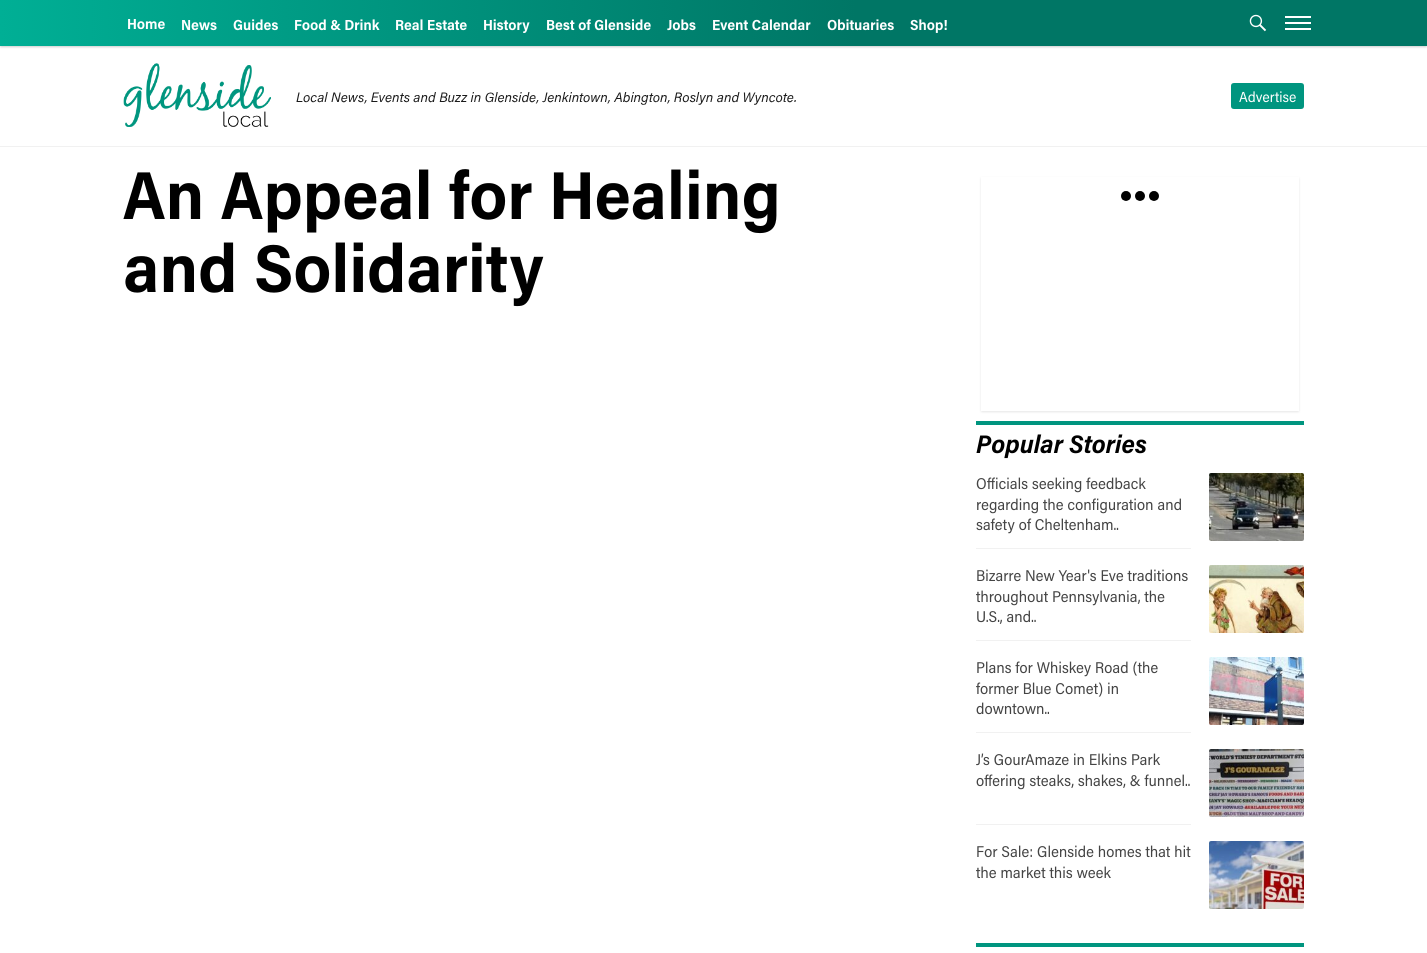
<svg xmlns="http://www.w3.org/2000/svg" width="1427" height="953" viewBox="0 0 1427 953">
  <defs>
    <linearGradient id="g1" gradientUnits="userSpaceOnUse" x1="0" y1="23" x2="1427" y2="23"><stop offset="0" stop-color="#00af95"/><stop offset="0.6" stop-color="#007665"/></linearGradient>
    <clipPath id="clip1"><path d="M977 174H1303V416H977ZM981 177H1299V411H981Z" clip-rule="evenodd"/></clipPath>
  </defs>
  <rect width="100%" height="100%" fill="#fff"/>
  <path d="M0 1h1427v46H0z" fill="#00000033" filter="blur(1px)"/>
  <path d="M0 0h1427v46H0z" fill="url(#g1)"/>
  <image x="128" y="19" width="37" height="11" href="img/1.png"/>
  <image x="182" y="20" width="35" height="11" href="img/2.png"/>
  <image x="233" y="19" width="45" height="12" href="img/3.png"/>
  <image x="295" y="19" width="85" height="12" href="img/4.png"/>
  <image x="396" y="19" width="71" height="12" href="img/5.png"/>
  <image x="484" y="19" width="46" height="14" href="img/6.png"/>
  <image x="547" y="19" width="104" height="12" href="img/7.png"/>
  <image x="667" y="19" width="29" height="12" href="img/8.png"/>
  <image x="713" y="19" width="98" height="12" href="img/9.png"/>
  <image x="827" y="19" width="67" height="12" href="img/10.png"/>
  <image x="910" y="19" width="37" height="14" href="img/11.png"/>
  <image x="1249" y="14" width="18" height="18" href="img/12.png"/>
  <path d="M1285 16h26v2H1285z" fill="#fff"/>
  <path d="M1285 22h26v2H1285z" fill="#fff"/>
  <path d="M1285 28h26v2H1285z" fill="#fff"/>
  <path d="M0 146h1427v1H0z" fill="#f1f1f1"/>
  <image x="123" y="63" width="148" height="64" href="img/13.png"/>
  <rect x="1231" y="83" width="73" height="26" rx="3" fill="#00957f"/>
  <image x="1239" y="91" width="57" height="12" href="img/14.png"/>
  <image x="123" y="169" width="654" height="65" href="img/15.png"/>
  <image x="125" y="242" width="419" height="65" href="img/16.png"/>
  <g clip-path="url(#clip1)">
    <path d="M981 178h318v234H981z" fill="#0000001a" filter="blur(1px)"/>
  </g>
  <circle cx="1126" cy="196" r="5" fill="#000"/>
  <circle cx="1140" cy="196" r="5" fill="#000"/>
  <circle cx="1154" cy="196" r="5" fill="#000"/>
  <path d="M976 421h328v4H976z" fill="#00957f"/>
  <image x="976" y="434" width="171" height="25" href="img/17.png"/>
  <path d="M976 548h215v1H976z" fill="#f1f1f1"/>
  <image x="976" y="477" width="170" height="16" href="img/18.png"/>
  <image x="977" y="498" width="204" height="16" href="img/19.png"/>
  <image x="976" y="518" width="143" height="16" href="img/20.png"/>
  <image x="1209" y="473" width="95" height="68" href="img/21.png"/>
  <path d="M976 640h215v1H976z" fill="#f1f1f1"/>
  <image x="977" y="569" width="211" height="13" href="img/22.png"/>
  <image x="976" y="590" width="189" height="16" href="img/23.png"/>
  <image x="977" y="610" width="59" height="14" href="img/24.png"/>
  <image x="1209" y="565" width="95" height="68" href="img/25.png"/>
  <path d="M976 732h215v1H976z" fill="#f1f1f1"/>
  <image x="977" y="661" width="181" height="16" href="img/26.png"/>
  <image x="976" y="682" width="142" height="15" href="img/27.png"/>
  <image x="976" y="702" width="74" height="13" href="img/28.png"/>
  <image x="1209" y="657" width="95" height="68" href="img/29.png"/>
  <path d="M976 824h215v1H976z" fill="#f1f1f1"/>
  <image x="976" y="753" width="185" height="13" href="img/30.png"/>
  <image x="976" y="774" width="214" height="16" href="img/31.png"/>
  <image x="1209" y="749" width="95" height="68" href="img/32.png"/>
  <image x="977" y="845" width="214" height="13" href="img/33.png"/>
  <image x="976" y="866" width="135" height="13" href="img/34.png"/>
  <image x="1209" y="841" width="95" height="68" href="img/35.png"/>
  <path d="M976 943h328v4H976z" fill="#00957f"/>
  <text x="296" y="102" font-family="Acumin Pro" font-size="13.6" font-style="italic" fill="#1a1a1a">Local News, Events and Buzz in Glenside, Jenkintown, Abington, Roslyn and Wyncote.</text>
</svg>
